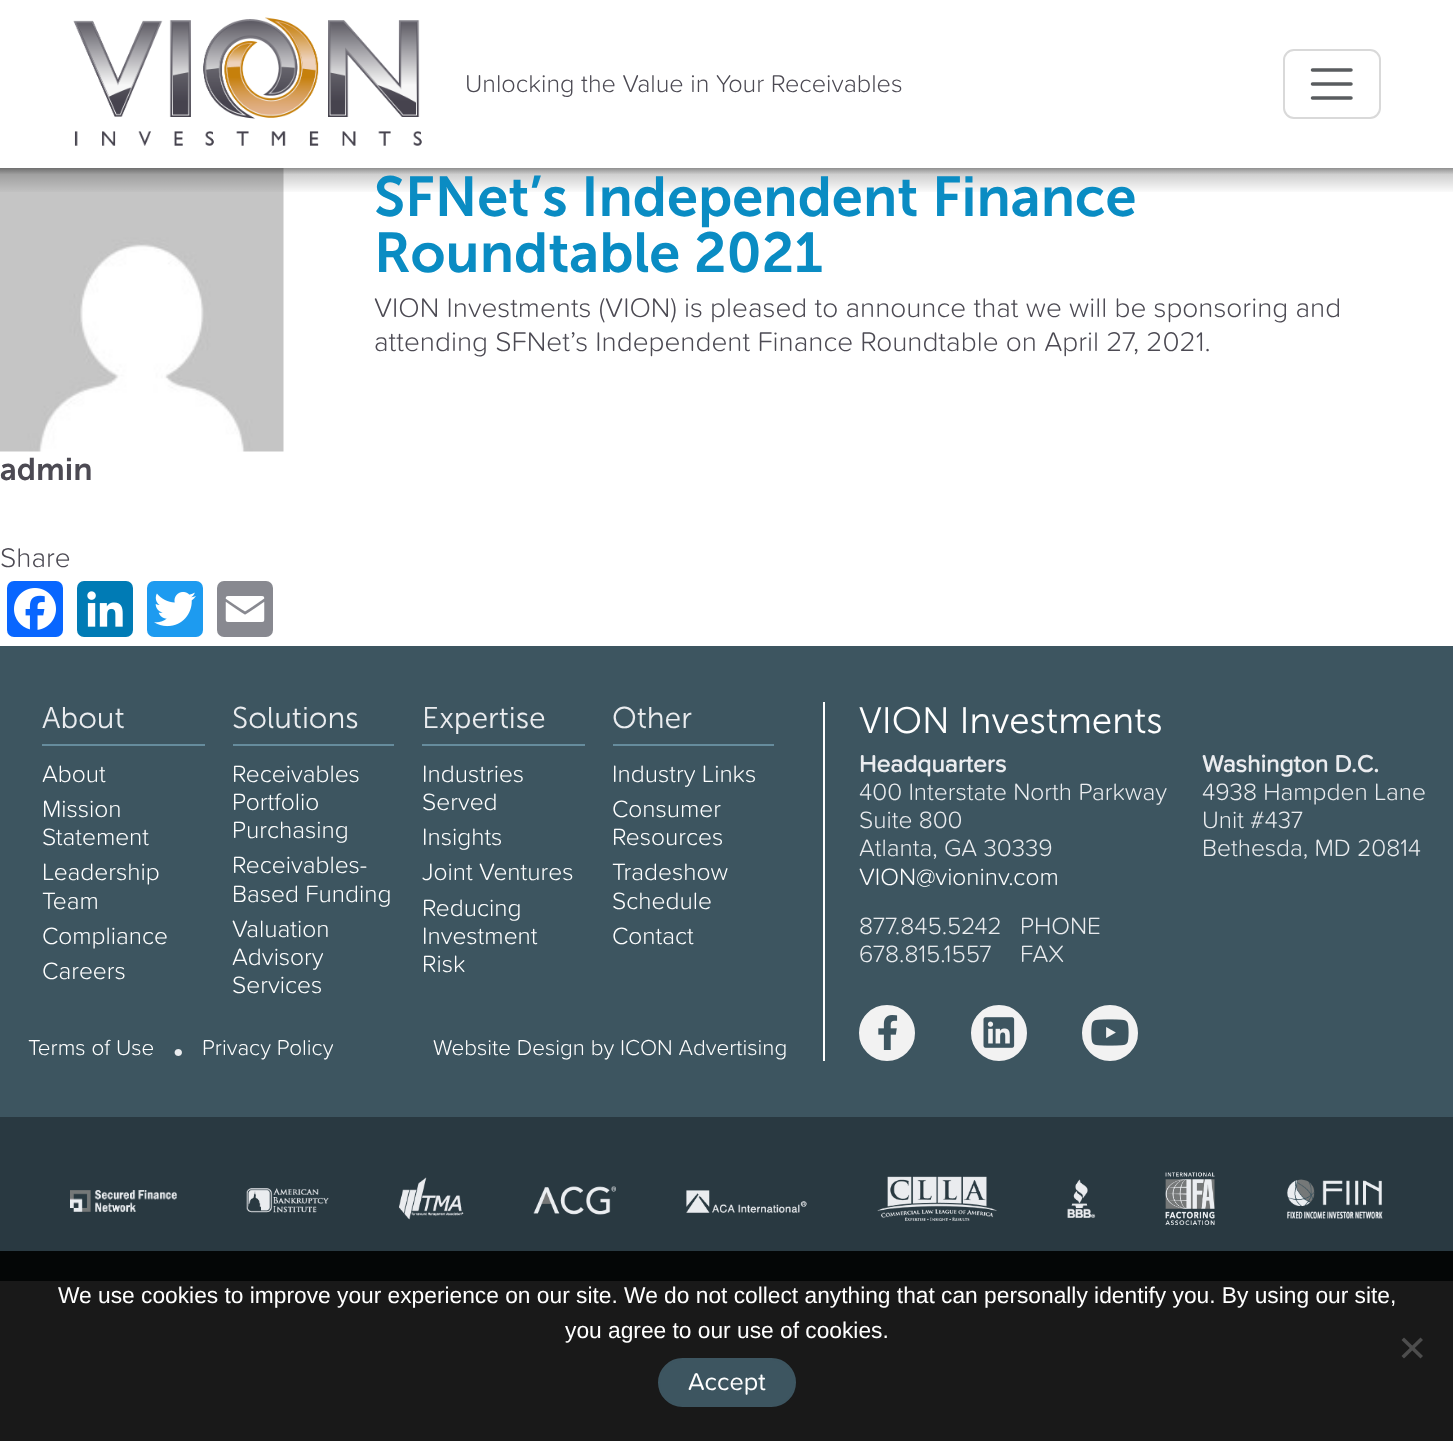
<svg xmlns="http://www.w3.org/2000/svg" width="1453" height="1441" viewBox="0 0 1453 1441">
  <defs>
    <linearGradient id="g1" gradientUnits="userSpaceOnUse" x1="727" y1="168" x2="727" y2="194"><stop offset="0" stop-color="#000" stop-opacity="0.25"/><stop offset="1" stop-color="#000" stop-opacity="0"/></linearGradient>
    <linearGradient id="g2" gradientUnits="userSpaceOnUse" x1="727" y1="168" x2="727" y2="194"><stop offset="0" stop-color="#000" stop-opacity="0.25"/><stop offset="0.25" stop-color="#000" stop-opacity="0"/></linearGradient>
  </defs>
  <rect width="100%" height="100%" fill="#fff"/>
  <path d="M0 1281h1453v160H0z" fill="#191919"/>
  <image x="73" y="17" width="349" height="129" href="img/1.png"/>
  <rect x="1284" y="50" width="96" height="68" rx="10" fill="none" stroke="#d9d9d9" stroke-width="2"/>
  <path d="M1312.5 70H1351M1312.5 84H1351M1312.5 98H1351" fill="none" stroke="#595c5f" stroke-width="3.5" stroke-linecap="round"/>
  <image x="0" y="168" width="284" height="284" href="img/2.png"/>
  <path d="M0 168h1453v24H0z" fill="url(#g1)"/>
  <path d="M0 168h1453v6H0z" fill="url(#g2)"/>
  <rect x="7" y="581" width="56" height="56" rx="7" fill="#0866ff"/>
  <image x="14" y="588" width="42" height="42" href="img/3.png"/>
  <rect x="77" y="581" width="56" height="56" rx="7" fill="#007bb5"/>
  <image x="87" y="591" width="36" height="36" href="img/4.png"/>
  <rect x="147" y="581" width="56" height="56" rx="7" fill="#1d9bf0"/>
  <image x="154" y="591" width="42" height="36" href="img/5.png"/>
  <rect x="217" y="581" width="56" height="56" rx="7" fill="#888990"/>
  <image x="225" y="596" width="40" height="26" href="img/6.png"/>
  <path d="M0 646h1453v471H0z" fill="#3d5560"/>
  <path d="M42 744h163v2H42z" fill="#668c9d"/>
  <path d="M233 744h161v2H233z" fill="#668c9d"/>
  <path d="M422 744h163v2H422z" fill="#668c9d"/>
  <path d="M613 744h161v2H613z" fill="#668c9d"/>
  <path d="M823 702h2v359H823z" fill="#fff"/>
  <circle cx="887" cy="1033" r="26" fill="#f2f2f2" stroke="#f2f2f2" stroke-width="4"/>
  <image x="878" y="1015" width="20" height="35" href="img/7.png"/>
  <circle cx="999" cy="1033" r="26" fill="#f2f2f2" stroke="#f2f2f2" stroke-width="4"/>
  <image x="983" y="1017" width="32" height="31" href="img/8.png"/>
  <circle cx="1110" cy="1033" r="26" fill="#f2f2f2" stroke="#f2f2f2" stroke-width="4"/>
  <image x="1091" y="1019" width="38" height="27" href="img/9.png"/>
  <path d="M0 1117h1453v134H0z" fill="#293941"/>
  <path d="M0 1251h1453v30H0z" fill="#040606"/>
  <image x="70" y="1190" width="107" height="23" href="img/10.png"/>
  <image x="246" y="1188" width="83" height="25" href="img/11.png"/>
  <image x="399" y="1177" width="65" height="43" href="img/12.png"/>
  <image x="533" y="1186" width="83" height="29" href="img/13.png"/>
  <image x="686" y="1190" width="121" height="23" href="img/14.png"/>
  <image x="877" y="1176" width="120" height="45" href="img/15.png"/>
  <image x="1067" y="1179" width="29" height="39" href="img/16.png"/>
  <image x="1165" y="1172" width="50" height="53" href="img/17.png"/>
  <image x="1287" y="1179" width="96" height="40" href="img/18.png"/>
  <path d="M1420.5 1337.5L1423 1340L1404 1358.5L1401.5 1356Z" fill="#4d4d4d"/>
  <path d="M1401.5 1340L1404 1337.5L1423 1356L1420.5 1358.5Z" fill="#4d4d4d"/>
  <rect x="659" y="1359" width="136" height="47" rx="23.5" fill="#3d5560" stroke="#3d5560" stroke-width="2"/>
  <text x="465" y="92" font-family="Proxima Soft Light" font-size="25.25" font-weight="300" fill="#4c4a53">Unlocking the Value in Your Receivables</text>
  <g font-family="'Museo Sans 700'" font-size="56" font-weight="600" fill="#0a8cc3">
    <text x="374" y="216">SFNet’s Independent Finance</text>
    <text x="374" y="272">Roundtable 2021</text>
  </g>
  <g font-family="Proxima Soft Light" font-size="28" font-weight="300" fill="#4c4a53">
    <text x="374" y="317">VION Investments (VION) is pleased to announce that we will be sponsoring and</text>
    <text x="374" y="351">attending SFNet’s Independent Finance Roundtable on April 27, 2021.</text>
  </g>
  <text x="0" y="480" font-family="'Museo Sans 700'" font-size="31.5" font-weight="600" fill="#4c4a53">admin</text>
  <text x="0" y="567" font-family="Proxima Soft Light" font-size="28" font-weight="300" fill="#4c4a53">Share</text>
  <text x="42" y="728" font-family="'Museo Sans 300'" font-size="30" font-weight="300" fill="#eaecef">About</text>
  <g font-family="Proxima Soft Light" font-size="24.5" font-weight="300" fill="#fff">
    <text x="42" y="782">About</text>
    <text x="42" y="817">Mission</text>
    <text x="42" y="845">Statement</text>
    <text x="42" y="880">Leadership</text>
    <text x="42" y="909">Team</text>
    <text x="42" y="944">Compliance</text>
    <text x="42" y="979">Careers</text>
  </g>
  <text x="232" y="728" font-family="'Museo Sans 300'" font-size="30" font-weight="300" fill="#eaecef">Solutions</text>
  <g font-family="Proxima Soft Light" font-size="24.5" font-weight="300" fill="#fff">
    <text x="232" y="782">Receivables</text>
    <text x="232" y="810">Portfolio</text>
    <text x="232" y="838">Purchasing</text>
    <text x="232" y="873">Receivables-</text>
    <text x="232" y="902">Based Funding</text>
    <text x="232" y="937">Valuation</text>
    <text x="232" y="965">Advisory</text>
    <text x="232" y="993">Services</text>
  </g>
  <text x="422" y="728" font-family="'Museo Sans 300'" font-size="30" font-weight="300" fill="#eaecef">Expertise</text>
  <g font-family="Proxima Soft Light" font-size="24.5" font-weight="300" fill="#fff">
    <text x="422" y="782">Industries</text>
    <text x="422" y="810">Served</text>
    <text x="422" y="845">Insights</text>
    <text x="422" y="880">Joint Ventures</text>
    <text x="422" y="916">Reducing</text>
    <text x="422" y="944">Investment</text>
    <text x="422" y="972">Risk</text>
  </g>
  <text x="612" y="728" font-family="'Museo Sans 300'" font-size="30" font-weight="300" fill="#eaecef">Other</text>
  <g font-family="Proxima Soft Light" font-size="24.5" font-weight="300" fill="#fff">
    <text x="612" y="782">Industry Links</text>
    <text x="612" y="817">Consumer</text>
    <text x="612" y="845">Resources</text>
    <text x="612" y="880">Tradeshow</text>
    <text x="612" y="909">Schedule</text>
    <text x="612" y="944">Contact</text>
  </g>
  <text x="28" y="1055" font-family="Proxima Soft Light" font-size="22.4" font-weight="300" fill="#fff">Terms of Use</text>
  <text x="172" y="1061" font-family="Proxima Soft Light" font-size="35" font-weight="300" fill="#eaecef">•</text>
  <g font-family="Proxima Soft Light" font-size="22.4" font-weight="300" fill="#fff">
    <text x="202" y="1055">Privacy Policy</text>
    <text x="433" y="1055">Website Design by ICON Advertising</text>
  </g>
  <text x="859" y="733" font-family="'Museo Sans 300'" font-size="36.75" font-weight="300" fill="#fff">VION Investments</text>
  <text x="859" y="772" font-family="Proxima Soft" font-size="24.5" font-weight="bold" fill="#eaecef">Headquarters</text>
  <g font-family="Proxima Soft Light" font-size="24.5" font-weight="300" fill="#eaecef">
    <text x="859" y="800">400 Interstate North Parkway</text>
    <text x="859" y="828">Suite 800</text>
    <text x="859" y="856">Atlanta, GA 30339</text>
  </g>
  <text x="859" y="885" font-family="Proxima Soft Light" font-size="24.5" font-weight="300" fill="#fff">VION@vioninv.com</text>
  <g font-family="Proxima Soft Light" font-size="24.5" font-weight="300" fill="#eaecef">
    <text x="859" y="934">877.845.5242</text>
    <text x="1020" y="934">PHONE</text>
    <text x="859" y="962">678.815.1557</text>
    <text x="1020" y="962">FAX</text>
  </g>
  <text x="1202" y="772" font-family="Proxima Soft" font-size="24.5" font-weight="bold" fill="#eaecef">Washington D.C.</text>
  <g font-family="Proxima Soft Light" font-size="24.5" font-weight="300" fill="#eaecef">
    <text x="1202" y="800">4938 Hampden Lane</text>
    <text x="1202" y="828">Unit #437</text>
    <text x="1202" y="856">Bethesda, MD 20814</text>
  </g>
  <g font-family="Liberation Sans" font-size="22.75" fill="#fff">
    <text x="58" y="1303">We use cookies to improve your experience on our site. We do not collect anything that can personally identify you. By using our site,</text>
    <text x="565" y="1338">you agree to our use of cookies.</text>
  </g>
  <text x="688" y="1390" font-family="Proxima Soft" font-size="25.25" fill="#fff">Accept</text>
</svg>
